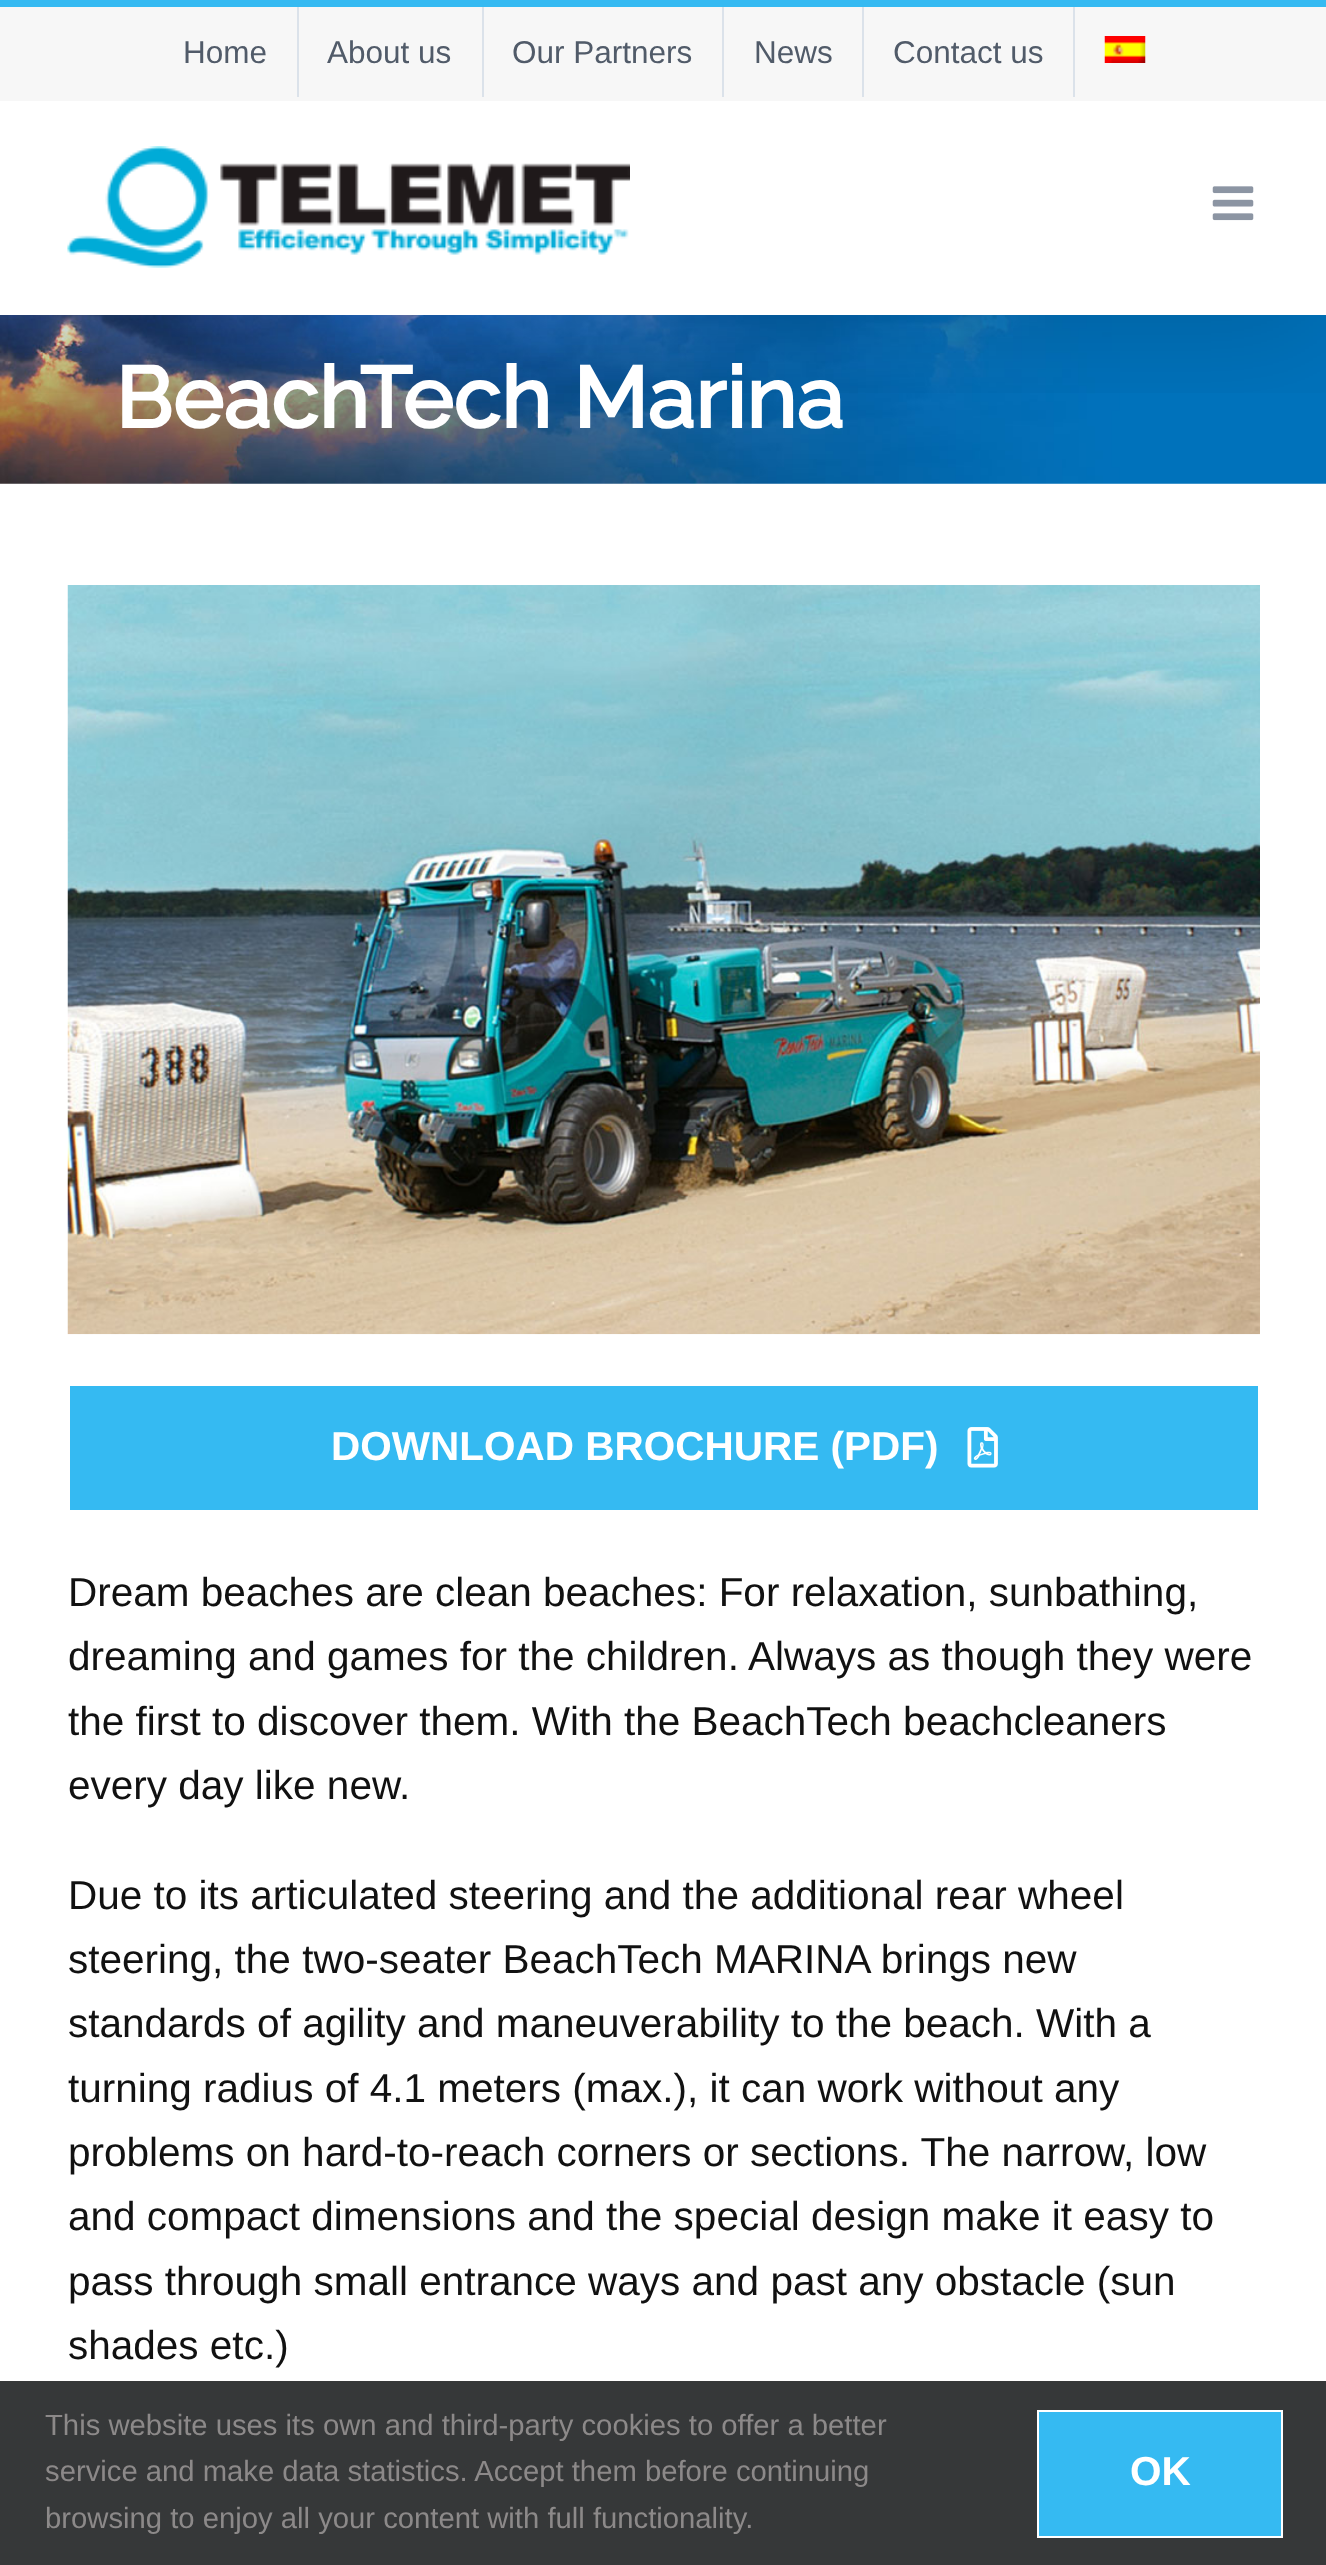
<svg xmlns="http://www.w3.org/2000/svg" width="1326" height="2565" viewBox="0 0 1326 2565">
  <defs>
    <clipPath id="clip1"><path d="M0 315h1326v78H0z"/></clipPath>
  </defs>
  <rect width="100%" height="100%" fill="#fff"/>
  <image x="0" y="315" width="1326" height="169" href="img/4.png"/>
  <g clip-path="url(#clip1)">
    <path d="M5 27h1318v306H5z" fill="#00000024" filter="blur(56px)"/>
  </g>
  <path d="M0 7h1326v94H0z" fill="#f7f7f7"/>
  <path d="M0 0h1326v7H0z" fill="#35baf2"/>
  <path d="M297 7h2v90H297z" fill="#dbe2ea"/>
  <path d="M482 7h2v90H482z" fill="#dbe2ea"/>
  <path d="M722 7h2v90H722z" fill="#dbe2ea"/>
  <path d="M862 7h2v90H862z" fill="#dbe2ea"/>
  <path d="M1073 7h2v90H1073z" fill="#dbe2ea"/>
  <image x="1104" y="36" width="42" height="27" href="img/1.png"/>
  <image x="67" y="146" width="563" height="122" href="img/2.png"/>
  <image x="1212" y="186" width="42" height="35" href="img/3.png"/>
  <image x="67" y="585" width="1193" height="750" href="img/5.png"/>
  <path d="M70 1386h1188v124H70z" fill="#35baf2"/>
  <image x="967" y="1427" width="31" height="41" href="img/6.png"/>
  <path d="M0 2381h1326v184H0z" fill="#363839"/>
  <path d="M1038 2411h244v126H1038z" fill="#35baf2" stroke="#fff" stroke-width="2"/>
  <g font-family="Liberation Sans" font-size="31.5" fill="#515b69">
    <text x="183" y="63">Home</text>
    <text x="327" y="63">About us</text>
    <text x="512" y="63">Our Partners</text>
    <text x="754" y="63">News</text>
    <text x="893" y="63">Contact us</text>
  </g>
  <text x="115" y="428" font-family="Raleway" font-size="85.75" font-weight="bold" fill="#fff">BeachTech Marina</text>
  <text x="331" y="1460" font-family="Liberation Sans" font-size="40.5" font-weight="bold" fill="#fff">DOWNLOAD BROCHURE (PDF)</text>
  <g font-family="Liberation Sans" font-size="40.5" fill="#111">
    <text x="68" y="1606">Dream beaches are clean beaches: For relaxation, sunbathing,</text>
    <text x="68" y="1670">dreaming and games for the children. Always as though they were</text>
    <text x="68" y="1735">the first to discover them. With the BeachTech beachcleaners</text>
    <text x="68" y="1799">every day like new.</text>
    <text x="68" y="1909">Due to its articulated steering and the additional rear wheel</text>
    <text x="68" y="1973">steering, the two-seater BeachTech MARINA brings new</text>
    <text x="68" y="2037">standards of agility and maneuverability to the beach. With a</text>
    <text x="68" y="2102">turning radius of 4.1 meters (max.), it can work without any</text>
    <text x="68" y="2166">problems on hard-to-reach corners or sections. The narrow, low</text>
    <text x="68" y="2230">and compact dimensions and the special design make it easy to</text>
    <text x="68" y="2295">pass through small entrance ways and past any obstacle (sun</text>
    <text x="68" y="2359">shades etc.)</text>
  </g>
  <g font-family="Liberation Sans" font-size="29.25" fill="#8c8989">
    <text x="45" y="2435">This website uses its own and third-party cookies to offer a better</text>
    <text x="45" y="2481">service and make data statistics. Accept them before continuing</text>
    <text x="45" y="2528">browsing to enjoy all your content with full functionality.</text>
  </g>
  <text x="1130" y="2485" font-family="Liberation Sans" font-size="40.5" font-weight="bold" fill="#fff">OK</text>
</svg>
